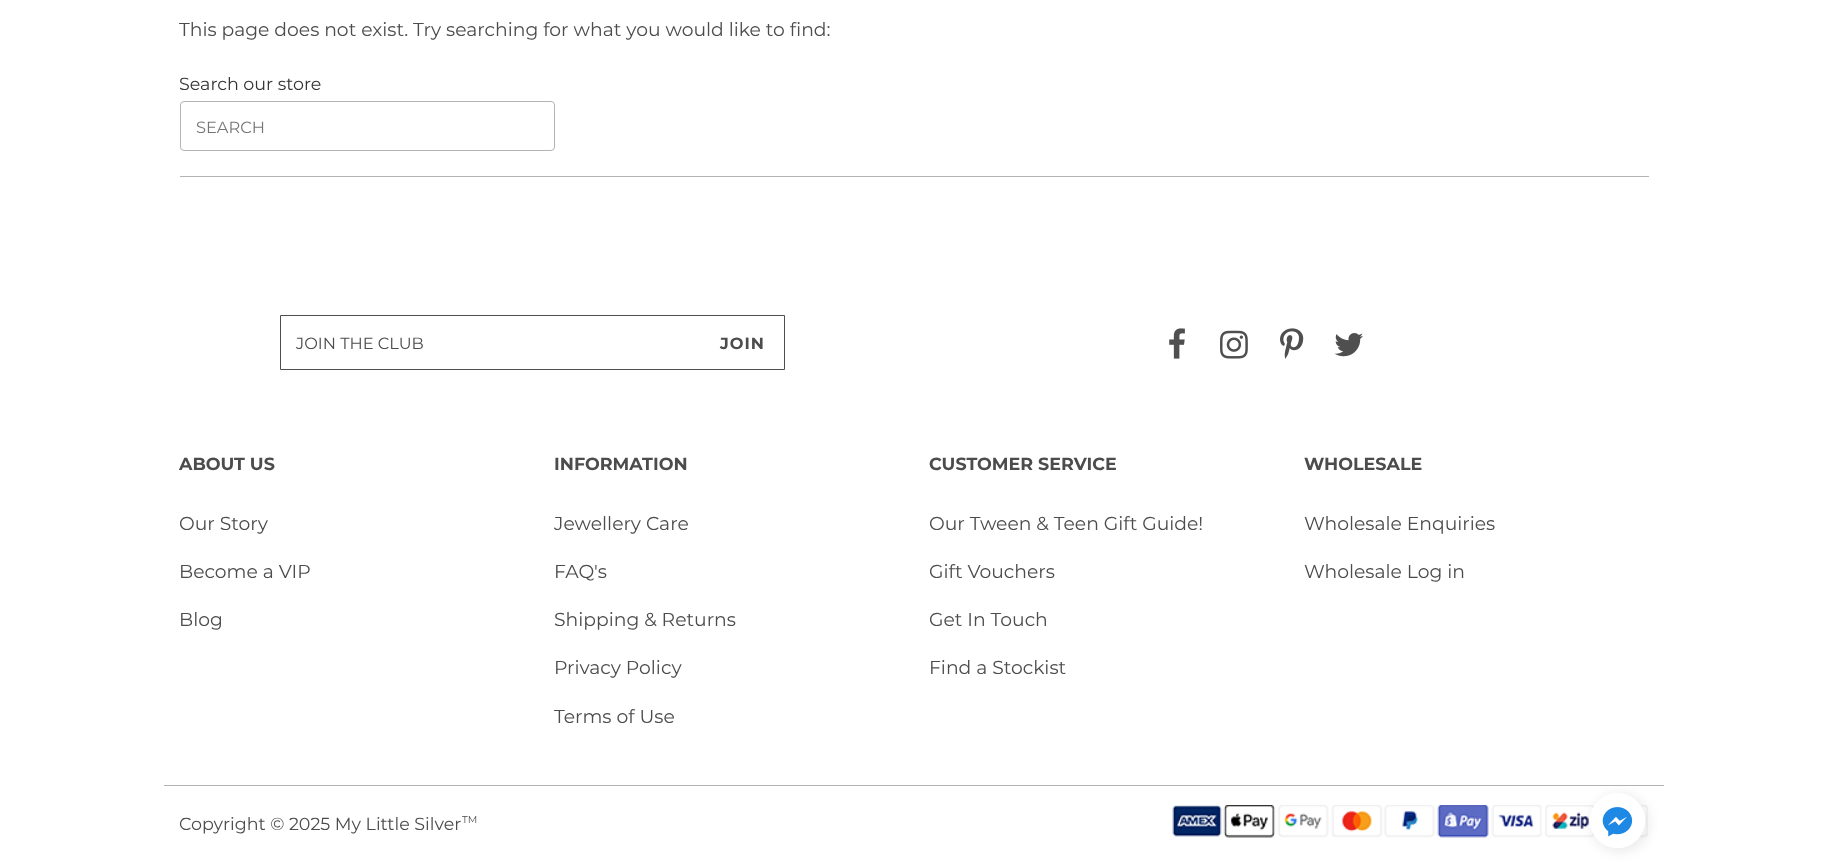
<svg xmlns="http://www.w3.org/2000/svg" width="1827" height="864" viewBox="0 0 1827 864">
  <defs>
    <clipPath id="clip1"><path d="M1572 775H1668V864H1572ZM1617.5 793C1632.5 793 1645 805.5 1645 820.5C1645 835.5 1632.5 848 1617.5 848C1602.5 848 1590 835.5 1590 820.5C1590 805.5 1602.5 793 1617.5 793Z" clip-rule="evenodd"/></clipPath>
  </defs>
  <rect width="100%" height="100%" fill="#fff"/>
  <path d="M180 176h1469v1H180z" fill="#b6b2b2"/>
  <rect x="180.5" y="101.5" width="374" height="49" rx="3.5" fill="none" stroke="#b6b2b2"/>
  <path d="M280.5 315.5h504v54H280.5z" fill="none" stroke="#4f4f4f"/>
  <image x="1169" y="328" width="16" height="31" href="img/1.png"/>
  <image x="1220" y="330" width="28" height="29" href="img/2.png"/>
  <image x="1280" y="328" width="24" height="31" href="img/3.png"/>
  <image x="1334" y="333" width="29" height="24" href="img/4.png"/>
  <path d="M164 785h1500v1H164z" fill="#b6b2b2"/>
  <image x="1172" y="805" width="476" height="33" href="img/5.png"/>
  <g clip-path="url(#clip1)">
    <rect x="1590" y="793" width="60" height="60" rx="30" fill="#00000012" filter="blur(5.5px)"/>
  </g>
  <image x="1590" y="805" width="55" height="43" href="img/6.png"/>
  <text x="179" y="36" font-family="Montserrat" font-size="18.75" fill="#4c4c4c">This page does not exist. Try searching for what you would like to find:</text>
  <text x="179" y="90" font-family="Montserrat" font-size="17.5" fill="#333">Search our store</text>
  <text x="196" y="133" font-family="Montserrat" font-size="16.25" fill="#757575">SEARCH</text>
  <text x="296" y="349" font-family="Montserrat" font-size="16.25" fill="#4c4c4c">JOIN THE CLUB</text>
  <text x="720" y="349" font-family="Montserrat" font-size="16.25" font-weight="bold" letter-spacing="1" fill="#4c4c4c">JOIN</text>
  <text x="179" y="470" font-family="Montserrat" font-size="17.5" font-weight="bold" fill="#4c4c4c">ABOUT US</text>
  <g font-family="Montserrat" font-size="18.75" fill="#4c4c4c">
    <text x="179" y="530">Our Story</text>
    <text x="179" y="578">Become a VIP</text>
    <text x="179" y="626">Blog</text>
  </g>
  <text x="554" y="470" font-family="Montserrat" font-size="17.5" font-weight="bold" fill="#4c4c4c">INFORMATION</text>
  <g font-family="Montserrat" font-size="18.75" fill="#4c4c4c">
    <text x="554" y="530">Jewellery Care</text>
    <text x="554" y="578">FAQ's</text>
    <text x="554" y="626">Shipping &amp; Returns</text>
    <text x="554" y="674">Privacy Policy</text>
    <text x="554" y="723">Terms of Use</text>
  </g>
  <text x="929" y="470" font-family="Montserrat" font-size="17.5" font-weight="bold" fill="#4c4c4c">CUSTOMER SERVICE</text>
  <g font-family="Montserrat" font-size="18.75" fill="#4c4c4c">
    <text x="929" y="530">Our Tween &amp; Teen Gift Guide!</text>
    <text x="929" y="578">Gift Vouchers</text>
    <text x="929" y="626">Get In Touch</text>
    <text x="929" y="674">Find a Stockist</text>
  </g>
  <text x="1304" y="470" font-family="Montserrat" font-size="17.5" font-weight="bold" fill="#4c4c4c">WHOLESALE</text>
  <g font-family="Montserrat" font-size="18.75" fill="#4c4c4c">
    <text x="1304" y="530">Wholesale Enquiries</text>
    <text x="1304" y="578">Wholesale Log in</text>
  </g>
  <text x="179" y="830" font-family="Montserrat" font-size="17.5" fill="#4c4c4c">Copyright © 2025 My Little Silver</text>
  <text x="462" y="823" font-family="Montserrat" font-size="10" fill="#4c4c4c">TM</text>
</svg>
